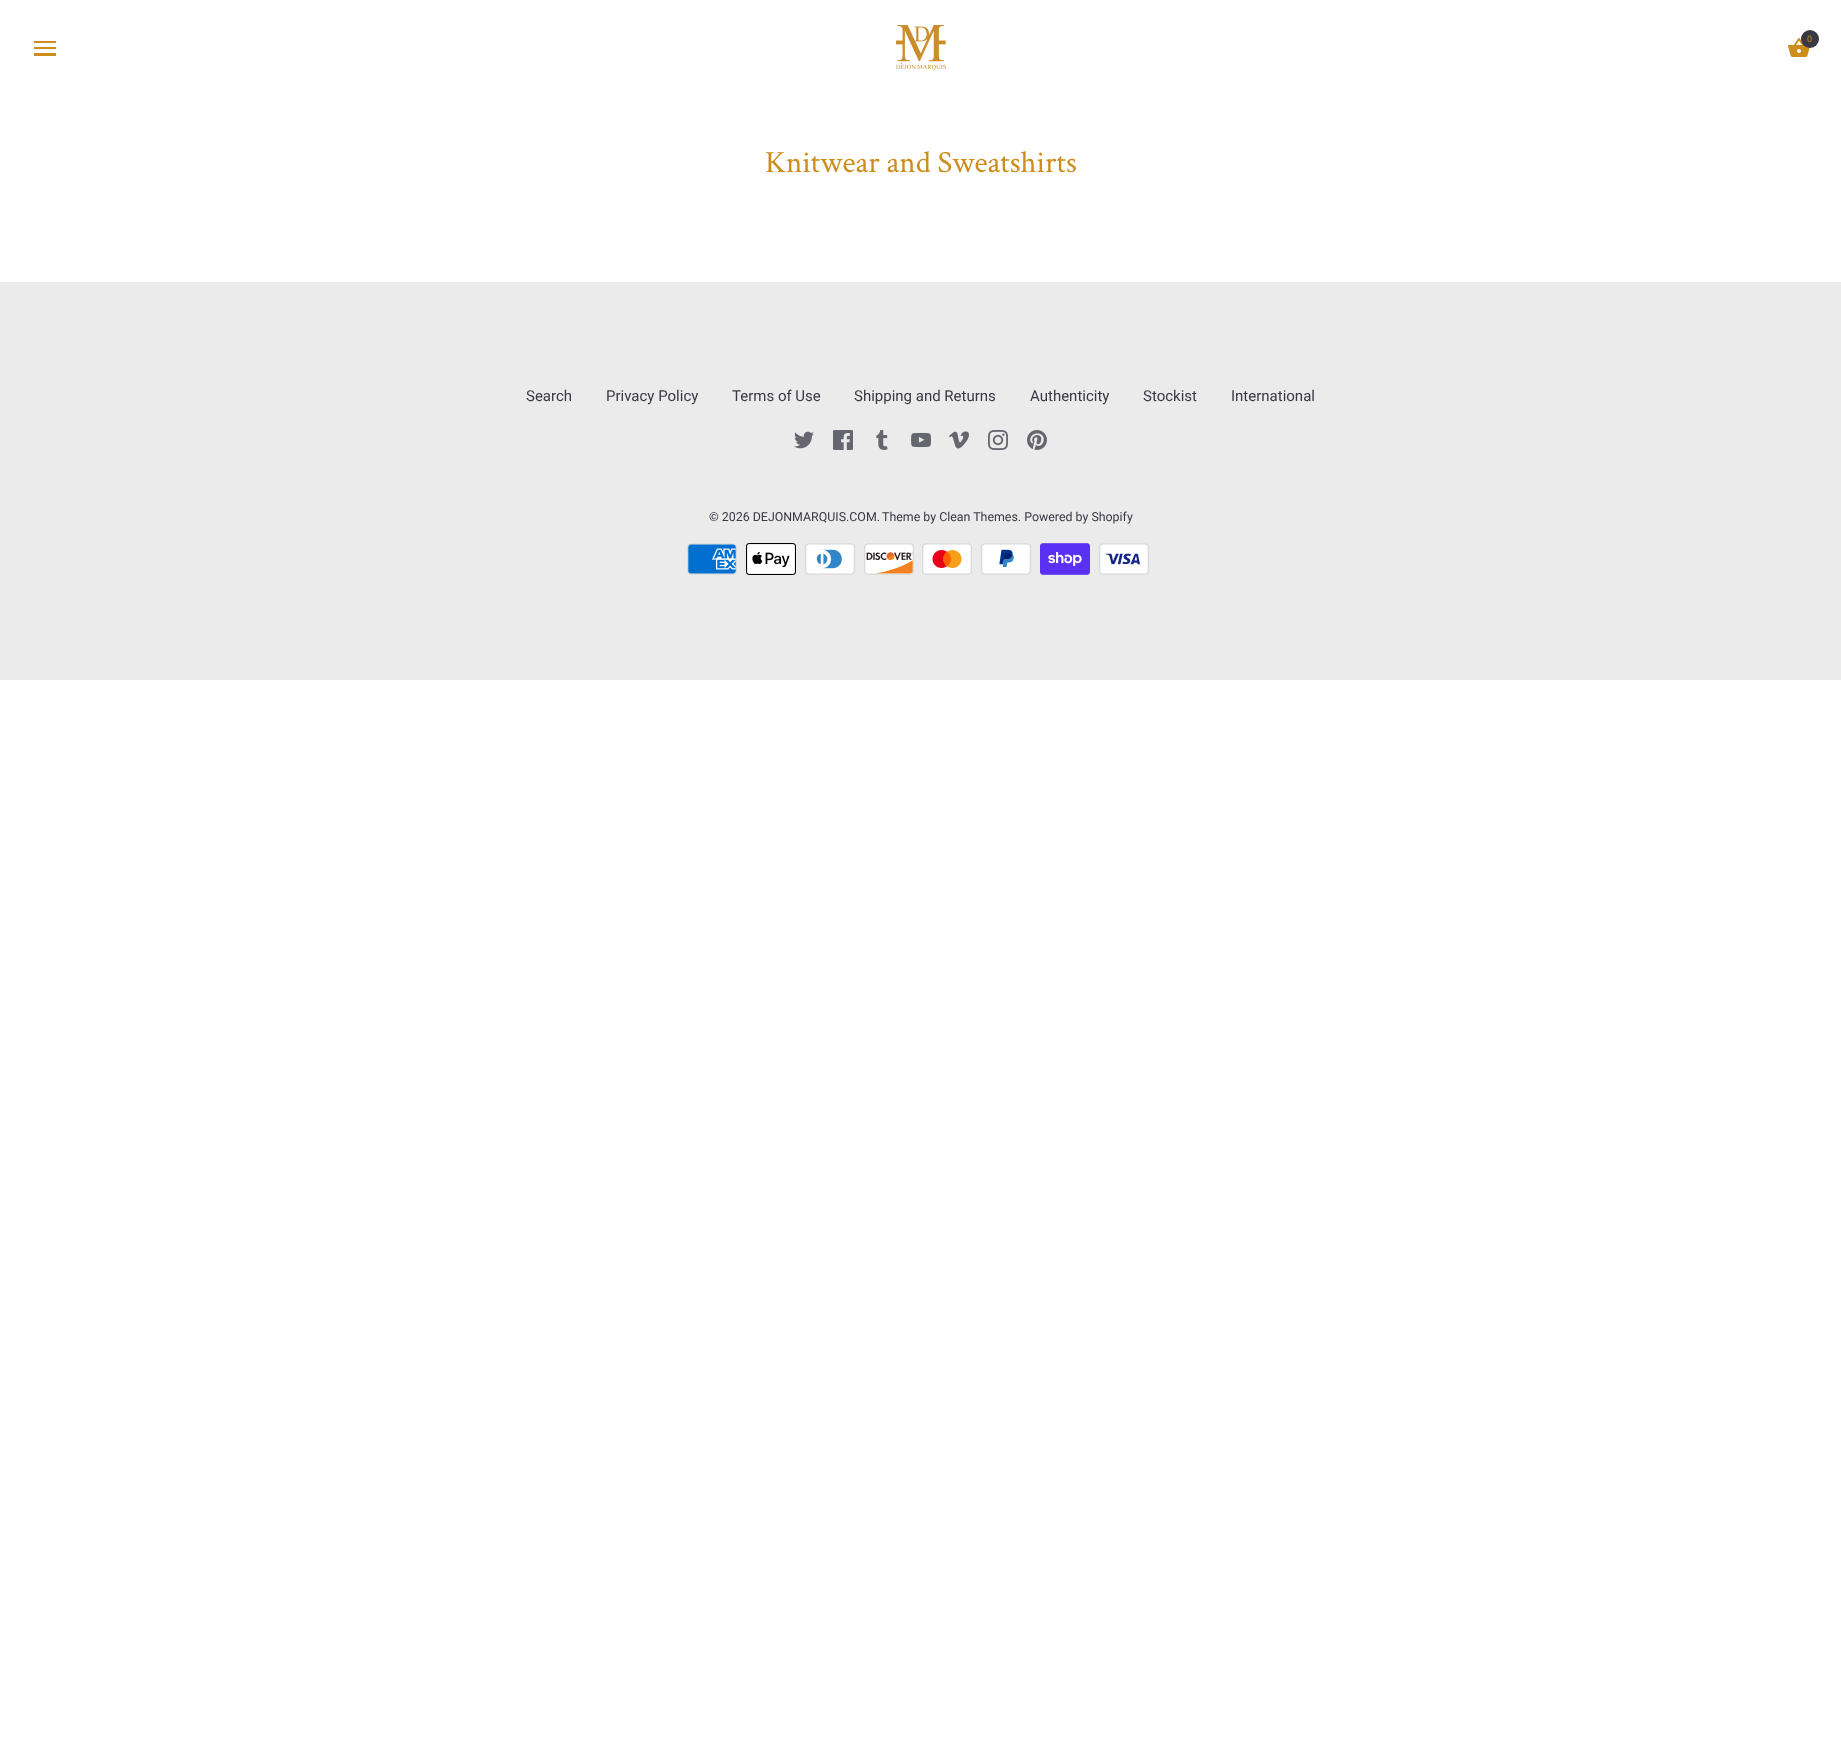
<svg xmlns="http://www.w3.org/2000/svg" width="1841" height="1754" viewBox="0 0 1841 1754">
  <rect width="100%" height="100%" fill="#fff"/>
  <image x="896" y="25" width="50" height="45" href="img/1.png"/>
  <image x="1788" y="38" width="22" height="19" href="img/2.png"/>
  <circle cx="1810" cy="39" r="9" fill="#393944"/>
  <path d="M34 41h22v2H34z" fill="#cc8d1c"/>
  <path d="M34 47h22v2H34z" fill="#cc8d1c"/>
  <path d="M34 53h22v3H34z" fill="#cc8d1c"/>
  <path d="M0 282h1841v398H0z" fill="#ebebeb"/>
  <image x="794" y="431" width="20" height="18" href="img/3.png"/>
  <image x="833" y="430" width="20" height="20" href="img/4.png"/>
  <image x="876" y="430" width="12" height="20" href="img/5.png"/>
  <image x="911" y="432" width="20" height="16" href="img/6.png"/>
  <image x="949" y="431" width="20" height="18" href="img/7.png"/>
  <image x="988" y="430" width="20" height="20" href="img/8.png"/>
  <image x="1027" y="430" width="20" height="20" href="img/9.png"/>
  <image x="687" y="543" width="50" height="32" href="img/10.png"/>
  <image x="746" y="543" width="50" height="32" href="img/11.png"/>
  <image x="805" y="543" width="50" height="32" href="img/12.png"/>
  <image x="864" y="543" width="50" height="32" href="img/13.png"/>
  <image x="922" y="543" width="50" height="32" href="img/14.png"/>
  <image x="981" y="543" width="50" height="32" href="img/15.png"/>
  <image x="1040" y="543" width="50" height="32" href="img/16.png"/>
  <image x="1099" y="543" width="50" height="32" href="img/17.png"/>
  <text x="1807" y="42" font-family="Roboto" font-size="9" fill="#cc8d1c">0</text>
  <text x="765" y="172" font-family="Crimson Text" font-size="30.9" fill="#cc8d1c">Knitwear and Sweatshirts</text>
  <g font-family="Roboto" font-size="15" fill="#393944">
    <text x="526" y="401">Search</text>
    <text x="606" y="401">Privacy Policy</text>
    <text x="732" y="401">Terms of Use</text>
    <text x="854" y="401">Shipping and Returns</text>
    <text x="1030" y="401">Authenticity</text>
    <text x="1143" y="401">Stockist</text>
    <text x="1231" y="401">International</text>
  </g>
  <g font-family="Roboto" font-size="12.4" fill="#393944">
    <text x="709" y="521">© 2026 DEJONMARQUIS.COM.</text>
    <text x="882" y="521">Theme by Clean Themes. Powered by Shopify</text>
  </g>
</svg>
